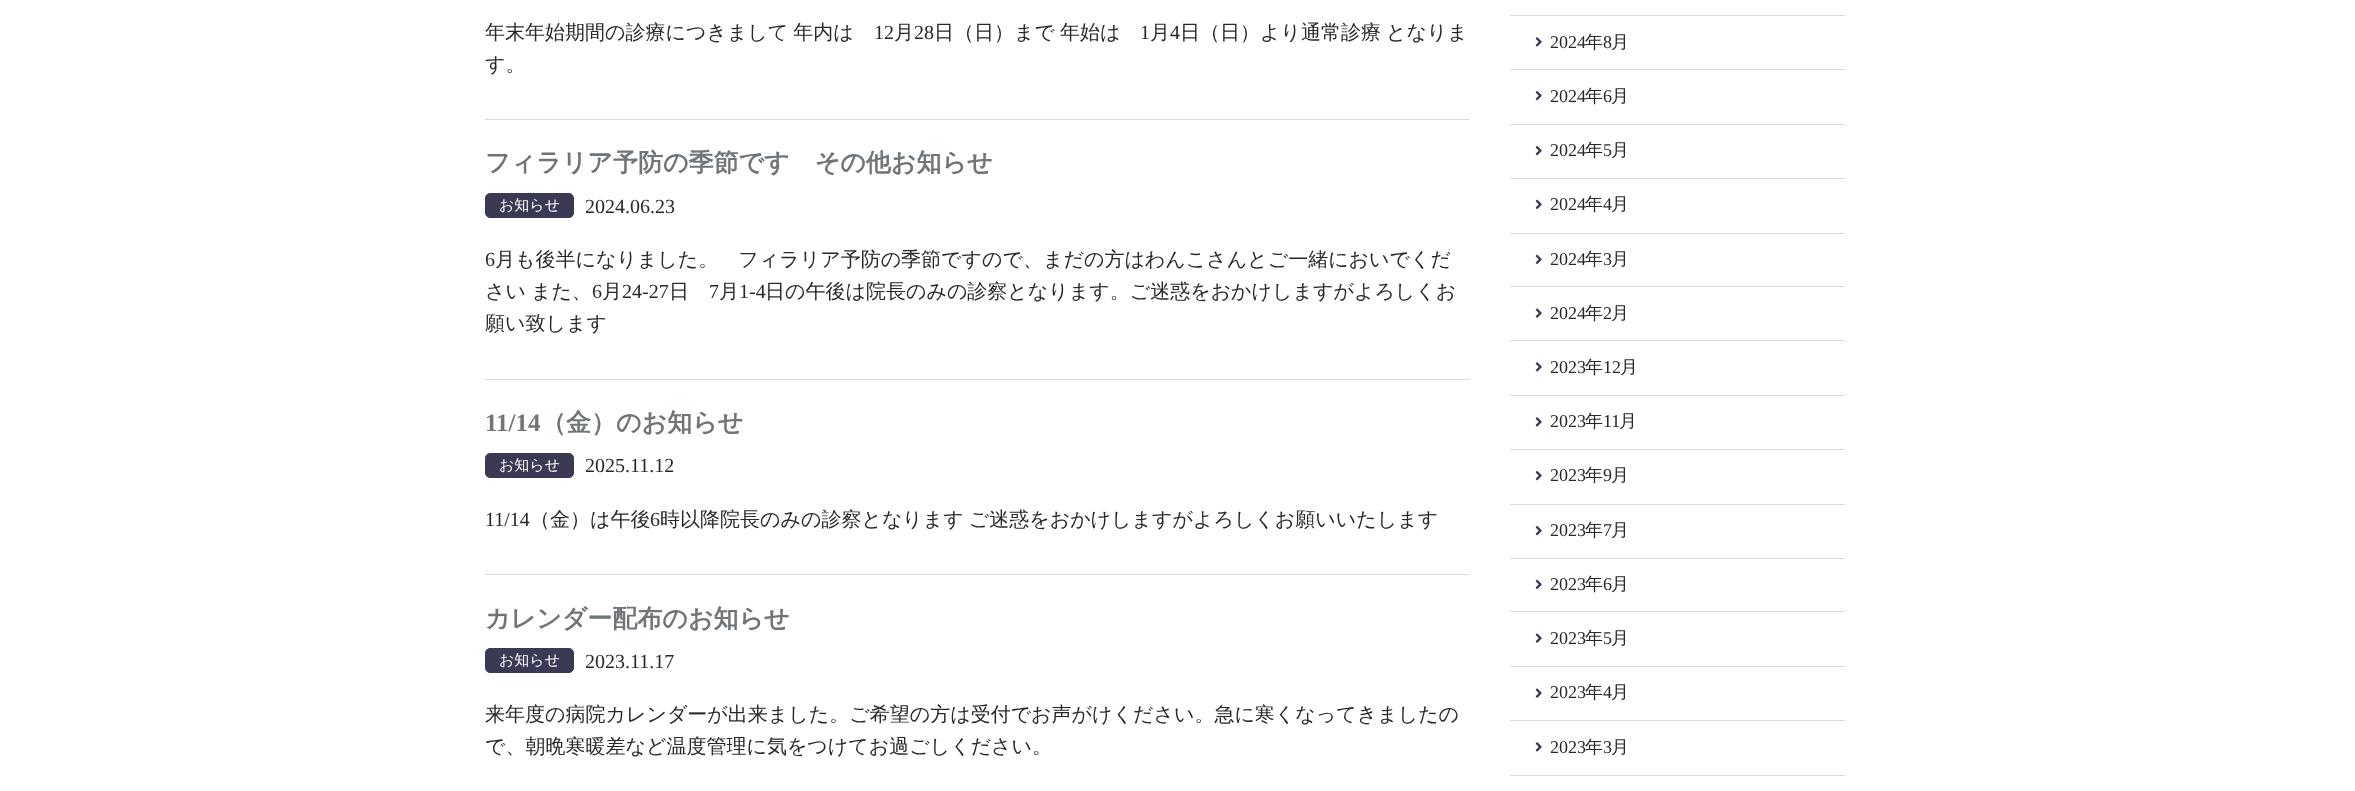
<svg xmlns="http://www.w3.org/2000/svg" width="2355" height="791" viewBox="0 0 2355 791">
  <rect width="100%" height="100%" fill="#fff"/>
  <path d="M485 119h985v1H485z" fill="#d8dadc"/>
  <path d="M485 379h985v1H485z" fill="#d8dadc"/>
  <rect x="485.5" y="193.5" width="88" height="24" rx="4.5" fill="#3a3a55" stroke="#3a3a55"/>
  <path d="M485 574h985v1H485z" fill="#d8dadc"/>
  <rect x="485.5" y="453.5" width="88" height="24" rx="4.5" fill="#3a3a55" stroke="#3a3a55"/>
  <rect x="485.5" y="648.5" width="88" height="24" rx="4.5" fill="#3a3a55" stroke="#3a3a55"/>
  <path d="M1510 15h335v1H1510z" fill="#d8dadc"/>
  <image x="1535" y="37" width="7" height="10" href="img/1.png"/>
  <path d="M1510 69h335v1H1510z" fill="#d8dadc"/>
  <image x="1535" y="91" width="7" height="10" href="img/2.png"/>
  <path d="M1510 124h335v1H1510z" fill="#d8dadc"/>
  <image x="1535" y="146" width="7" height="10" href="img/2.png"/>
  <path d="M1510 178h335v1H1510z" fill="#d8dadc"/>
  <image x="1535" y="199" width="7" height="10" href="img/3.png"/>
  <path d="M1510 233h335v1H1510z" fill="#d8dadc"/>
  <image x="1535" y="254" width="7" height="10" href="img/3.png"/>
  <path d="M1510 286h335v1H1510z" fill="#d8dadc"/>
  <image x="1535" y="308" width="7" height="10" href="img/4.png"/>
  <path d="M1510 340h335v1H1510z" fill="#d8dadc"/>
  <image x="1535" y="362" width="7" height="10" href="img/1.png"/>
  <path d="M1510 395h335v1H1510z" fill="#d8dadc"/>
  <image x="1535" y="417" width="7" height="10" href="img/1.png"/>
  <path d="M1510 449h335v1H1510z" fill="#d8dadc"/>
  <image x="1535" y="471" width="7" height="10" href="img/2.png"/>
  <path d="M1510 504h335v1H1510z" fill="#d8dadc"/>
  <image x="1535" y="526" width="7" height="10" href="img/2.png"/>
  <path d="M1510 558h335v1H1510z" fill="#d8dadc"/>
  <image x="1535" y="579" width="7" height="10" href="img/3.png"/>
  <path d="M1510 611h335v1H1510z" fill="#d8dadc"/>
  <image x="1535" y="633" width="7" height="10" href="img/4.png"/>
  <path d="M1510 666h335v1H1510z" fill="#d8dadc"/>
  <image x="1535" y="688" width="7" height="10" href="img/4.png"/>
  <path d="M1510 720h335v1H1510z" fill="#d8dadc"/>
  <image x="1535" y="742" width="7" height="10" href="img/1.png"/>
  <path d="M1510 775h335v1H1510z" fill="#d8dadc"/>
  <text x="485" y="39" word-spacing="-1" font-family="WenQuanYi Zen Hei" font-size="20" font-weight="500" fill="#262829">年末年始期間の診療につきまして 年内は</text>
  <text x="874" y="39" font-family="Liberation Serif" font-size="20" fill="#262829">12</text>
  <text x="894" y="39" font-family="WenQuanYi Zen Hei" font-size="20" font-weight="500" fill="#262829">月</text>
  <text x="914" y="39" font-family="Liberation Serif" font-size="20" fill="#262829">28</text>
  <text x="934" y="39" word-spacing="-1" font-family="WenQuanYi Zen Hei" font-size="20" font-weight="500" fill="#262829">日（日）まで 年始は</text>
  <text x="1140" y="39" font-family="Liberation Serif" font-size="20" fill="#262829">1</text>
  <text x="1150" y="39" font-family="WenQuanYi Zen Hei" font-size="20" font-weight="500" fill="#262829">月</text>
  <text x="1170" y="39" font-family="Liberation Serif" font-size="20" fill="#262829">4</text>
  <g font-family="WenQuanYi Zen Hei" font-size="20" font-weight="500" fill="#262829">
    <text x="1180" y="39" word-spacing="-1">日（日）より通常診療 となりま</text>
    <text x="485" y="71">す。</text>
  </g>
  <text x="485" y="171" font-family="WenQuanYi Zen Hei" font-size="25" font-weight="bold" fill="#6f7579">フィラリア予防の季節です　その他お知らせ</text>
  <text x="499" y="210" font-family="WenQuanYi Zen Hei" font-size="15" font-weight="500" fill="#fff">お知らせ</text>
  <g font-family="Liberation Serif" font-size="20" fill="#262829">
    <text x="585" y="213">2024.06.23</text>
    <text x="485" y="266">6</text>
  </g>
  <g font-family="WenQuanYi Zen Hei" font-size="20" font-weight="500" fill="#262829">
    <text x="495" y="266">月も後半になりました。　フィラリア予防の季節ですので、まだの方はわんこさんとご一緒においでくだ</text>
    <text x="485" y="298" word-spacing="-1">さい また、</text>
  </g>
  <text x="592" y="298" font-family="Liberation Serif" font-size="20" fill="#262829">6</text>
  <text x="602" y="298" font-family="WenQuanYi Zen Hei" font-size="20" font-weight="500" fill="#262829">月</text>
  <text x="622" y="298" font-family="Liberation Serif" font-size="20" fill="#262829">24-27</text>
  <text x="669" y="298" font-family="WenQuanYi Zen Hei" font-size="20" font-weight="500" fill="#262829">日</text>
  <text x="709" y="298" font-family="Liberation Serif" font-size="20" fill="#262829">7</text>
  <text x="719" y="298" font-family="WenQuanYi Zen Hei" font-size="20" font-weight="500" fill="#262829">月</text>
  <text x="739" y="298" font-family="Liberation Serif" font-size="20" fill="#262829">1-4</text>
  <g font-family="WenQuanYi Zen Hei" font-size="20" font-weight="500" fill="#262829">
    <text x="765" y="298">日の午後は院長のみの診察となります。ご迷惑をおかけしますがよろしくお</text>
    <text x="485" y="330">願い致します</text>
  </g>
  <text x="485" y="431" font-family="Liberation Serif" font-size="25" font-weight="bold" fill="#6f7579">11/14</text>
  <text x="541" y="431" font-family="WenQuanYi Zen Hei" font-size="25" font-weight="bold" fill="#6f7579">（金）のお知らせ</text>
  <text x="499" y="470" font-family="WenQuanYi Zen Hei" font-size="15" font-weight="500" fill="#fff">お知らせ</text>
  <g font-family="Liberation Serif" font-size="20" fill="#262829">
    <text x="585" y="472">2025.11.12</text>
    <text x="485" y="526">11/14</text>
  </g>
  <text x="530" y="526" font-family="WenQuanYi Zen Hei" font-size="20" font-weight="500" fill="#262829">（金）は午後</text>
  <text x="650" y="526" font-family="Liberation Serif" font-size="20" fill="#262829">6</text>
  <text x="660" y="526" word-spacing="-1" font-family="WenQuanYi Zen Hei" font-size="20" font-weight="500" fill="#262829">時以降院長のみの診察となります ご迷惑をおかけしますがよろしくお願いいたします</text>
  <text x="485" y="627" font-family="WenQuanYi Zen Hei" font-size="25" font-weight="bold" fill="#6f7579">カレンダー配布のお知らせ</text>
  <text x="499" y="665" font-family="WenQuanYi Zen Hei" font-size="15" font-weight="500" fill="#fff">お知らせ</text>
  <text x="585" y="668" font-family="Liberation Serif" font-size="20" fill="#262829">2023.11.17</text>
  <g font-family="WenQuanYi Zen Hei" font-size="20" font-weight="500" fill="#262829">
    <text x="485" y="721">来年度の病院カレンダーが出来ました。ご希望の方は受付でお声がけください。急に寒くなってきましたの</text>
    <text x="485" y="753">で、朝晩寒暖差など温度管理に気をつけてお過ごしください。</text>
  </g>
  <text x="1550" y="48" font-family="Liberation Serif" font-size="18" fill="#262829">2024</text>
  <text x="1585" y="48" font-family="WenQuanYi Zen Hei" font-size="18" font-weight="500" fill="#262829">年</text>
  <text x="1603" y="48" font-family="Liberation Serif" font-size="18" fill="#262829">8</text>
  <text x="1611" y="48" font-family="WenQuanYi Zen Hei" font-size="18" font-weight="500" fill="#262829">月</text>
  <text x="1550" y="102" font-family="Liberation Serif" font-size="18" fill="#262829">2024</text>
  <text x="1585" y="102" font-family="WenQuanYi Zen Hei" font-size="18" font-weight="500" fill="#262829">年</text>
  <text x="1603" y="102" font-family="Liberation Serif" font-size="18" fill="#262829">6</text>
  <text x="1611" y="102" font-family="WenQuanYi Zen Hei" font-size="18" font-weight="500" fill="#262829">月</text>
  <text x="1550" y="156" font-family="Liberation Serif" font-size="18" fill="#262829">2024</text>
  <text x="1585" y="156" font-family="WenQuanYi Zen Hei" font-size="18" font-weight="500" fill="#262829">年</text>
  <text x="1603" y="156" font-family="Liberation Serif" font-size="18" fill="#262829">5</text>
  <text x="1611" y="156" font-family="WenQuanYi Zen Hei" font-size="18" font-weight="500" fill="#262829">月</text>
  <text x="1550" y="210" font-family="Liberation Serif" font-size="18" fill="#262829">2024</text>
  <text x="1585" y="210" font-family="WenQuanYi Zen Hei" font-size="18" font-weight="500" fill="#262829">年</text>
  <text x="1603" y="210" font-family="Liberation Serif" font-size="18" fill="#262829">4</text>
  <text x="1611" y="210" font-family="WenQuanYi Zen Hei" font-size="18" font-weight="500" fill="#262829">月</text>
  <text x="1550" y="265" font-family="Liberation Serif" font-size="18" fill="#262829">2024</text>
  <text x="1585" y="265" font-family="WenQuanYi Zen Hei" font-size="18" font-weight="500" fill="#262829">年</text>
  <text x="1603" y="265" font-family="Liberation Serif" font-size="18" fill="#262829">3</text>
  <text x="1611" y="265" font-family="WenQuanYi Zen Hei" font-size="18" font-weight="500" fill="#262829">月</text>
  <text x="1550" y="319" font-family="Liberation Serif" font-size="18" fill="#262829">2024</text>
  <text x="1585" y="319" font-family="WenQuanYi Zen Hei" font-size="18" font-weight="500" fill="#262829">年</text>
  <text x="1603" y="319" font-family="Liberation Serif" font-size="18" fill="#262829">2</text>
  <text x="1611" y="319" font-family="WenQuanYi Zen Hei" font-size="18" font-weight="500" fill="#262829">月</text>
  <text x="1550" y="373" font-family="Liberation Serif" font-size="18" fill="#262829">2023</text>
  <text x="1585" y="373" font-family="WenQuanYi Zen Hei" font-size="18" font-weight="500" fill="#262829">年</text>
  <text x="1603" y="373" font-family="Liberation Serif" font-size="18" fill="#262829">12</text>
  <text x="1620" y="373" font-family="WenQuanYi Zen Hei" font-size="18" font-weight="500" fill="#262829">月</text>
  <text x="1550" y="427" font-family="Liberation Serif" font-size="18" fill="#262829">2023</text>
  <text x="1585" y="427" font-family="WenQuanYi Zen Hei" font-size="18" font-weight="500" fill="#262829">年</text>
  <text x="1603" y="427" font-family="Liberation Serif" font-size="18" fill="#262829">11</text>
  <text x="1619" y="427" font-family="WenQuanYi Zen Hei" font-size="18" font-weight="500" fill="#262829">月</text>
  <text x="1550" y="481" font-family="Liberation Serif" font-size="18" fill="#262829">2023</text>
  <text x="1585" y="481" font-family="WenQuanYi Zen Hei" font-size="18" font-weight="500" fill="#262829">年</text>
  <text x="1603" y="481" font-family="Liberation Serif" font-size="18" fill="#262829">9</text>
  <text x="1611" y="481" font-family="WenQuanYi Zen Hei" font-size="18" font-weight="500" fill="#262829">月</text>
  <text x="1550" y="536" font-family="Liberation Serif" font-size="18" fill="#262829">2023</text>
  <text x="1585" y="536" font-family="WenQuanYi Zen Hei" font-size="18" font-weight="500" fill="#262829">年</text>
  <text x="1603" y="536" font-family="Liberation Serif" font-size="18" fill="#262829">7</text>
  <text x="1611" y="536" font-family="WenQuanYi Zen Hei" font-size="18" font-weight="500" fill="#262829">月</text>
  <text x="1550" y="590" font-family="Liberation Serif" font-size="18" fill="#262829">2023</text>
  <text x="1585" y="590" font-family="WenQuanYi Zen Hei" font-size="18" font-weight="500" fill="#262829">年</text>
  <text x="1603" y="590" font-family="Liberation Serif" font-size="18" fill="#262829">6</text>
  <text x="1611" y="590" font-family="WenQuanYi Zen Hei" font-size="18" font-weight="500" fill="#262829">月</text>
  <text x="1550" y="644" font-family="Liberation Serif" font-size="18" fill="#262829">2023</text>
  <text x="1585" y="644" font-family="WenQuanYi Zen Hei" font-size="18" font-weight="500" fill="#262829">年</text>
  <text x="1603" y="644" font-family="Liberation Serif" font-size="18" fill="#262829">5</text>
  <text x="1611" y="644" font-family="WenQuanYi Zen Hei" font-size="18" font-weight="500" fill="#262829">月</text>
  <text x="1550" y="698" font-family="Liberation Serif" font-size="18" fill="#262829">2023</text>
  <text x="1585" y="698" font-family="WenQuanYi Zen Hei" font-size="18" font-weight="500" fill="#262829">年</text>
  <text x="1603" y="698" font-family="Liberation Serif" font-size="18" fill="#262829">4</text>
  <text x="1611" y="698" font-family="WenQuanYi Zen Hei" font-size="18" font-weight="500" fill="#262829">月</text>
  <text x="1550" y="753" font-family="Liberation Serif" font-size="18" fill="#262829">2023</text>
  <text x="1585" y="753" font-family="WenQuanYi Zen Hei" font-size="18" font-weight="500" fill="#262829">年</text>
  <text x="1603" y="753" font-family="Liberation Serif" font-size="18" fill="#262829">3</text>
  <text x="1611" y="753" font-family="WenQuanYi Zen Hei" font-size="18" font-weight="500" fill="#262829">月</text>
</svg>
